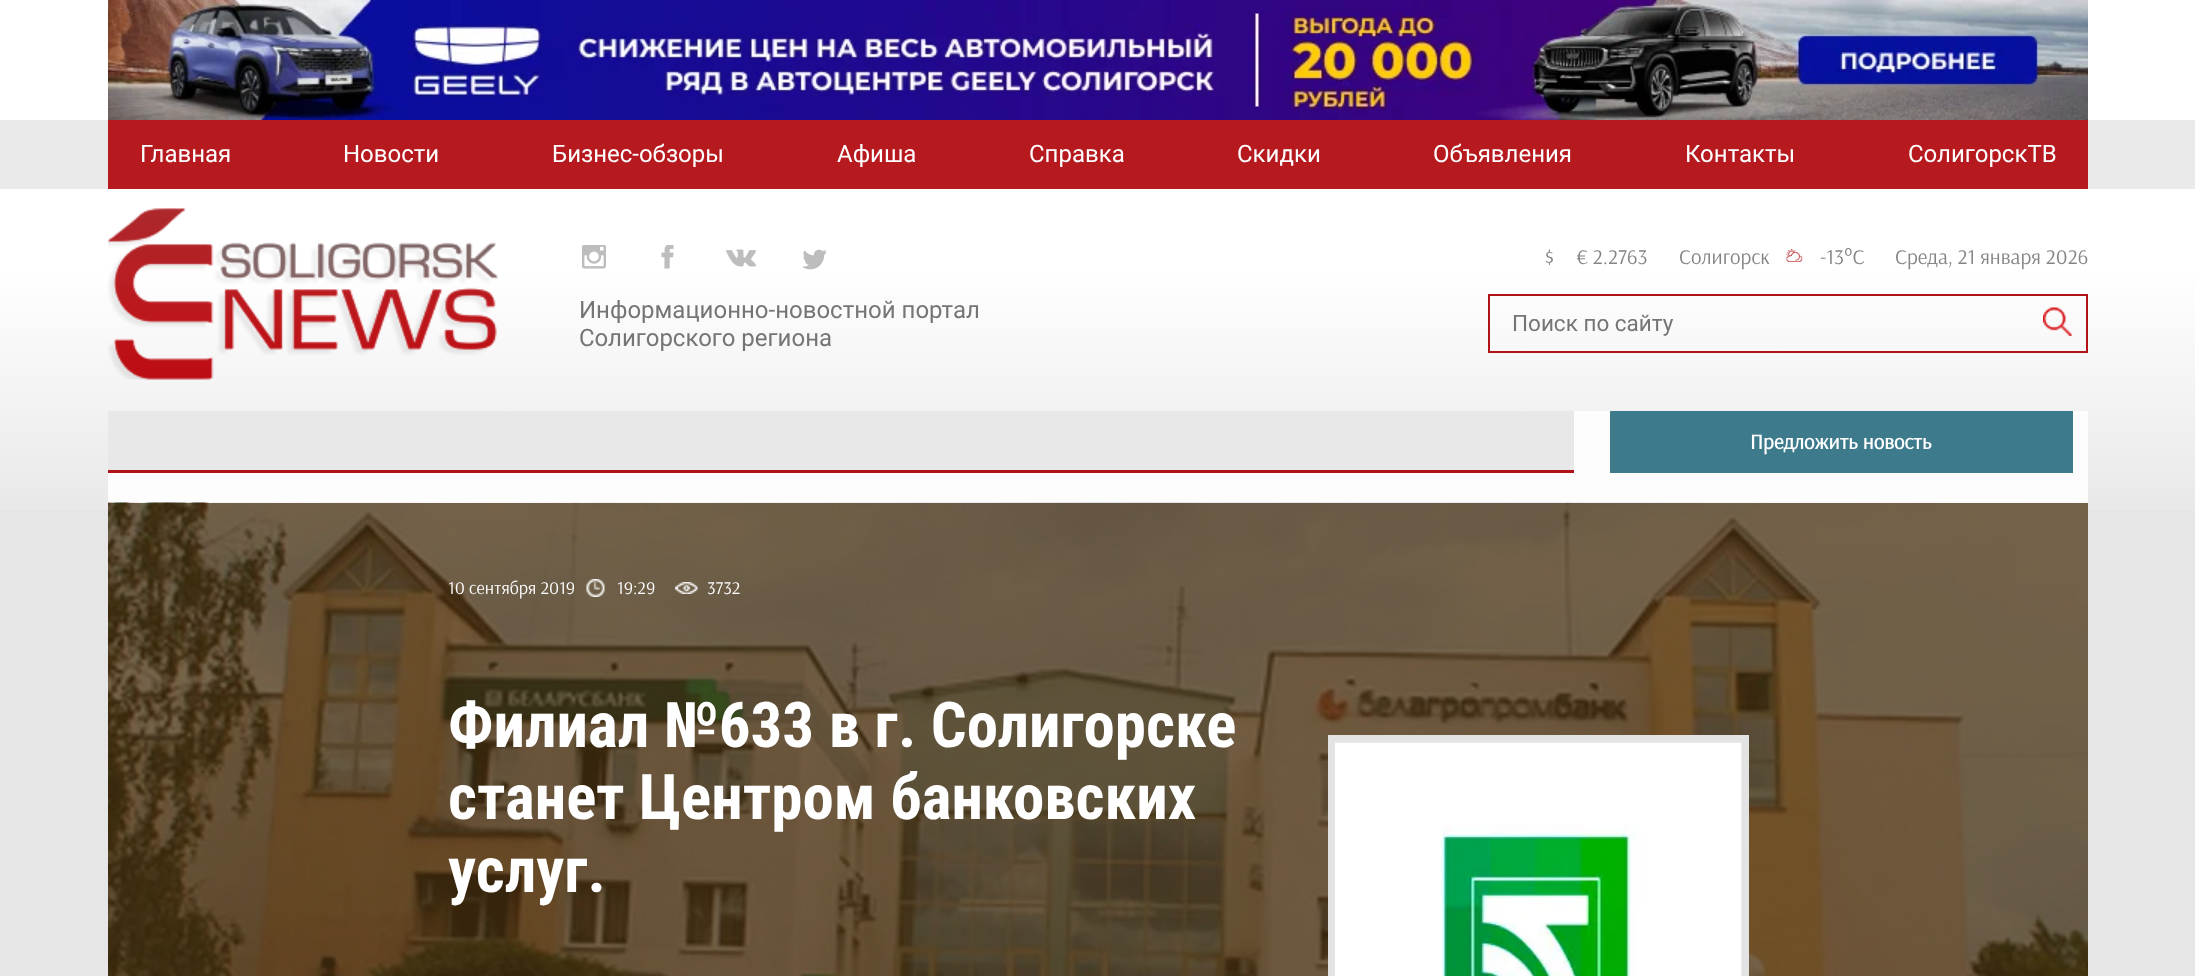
<svg xmlns="http://www.w3.org/2000/svg" width="2195" height="976" viewBox="0 0 2195 976">
  <defs>
    <linearGradient id="g1" gradientUnits="userSpaceOnUse" x1="1098" y1="0" x2="1098" y2="537"><stop offset="0" stop-color="#fff"/><stop offset="0.5" stop-color="#fff"/><stop offset="1" stop-color="#e6e6e6"/></linearGradient>
  </defs>
  <rect width="100%" height="100%" fill="#e6e6e6"/>
  <path d="M0 0h2195v510H0z" fill="url(#g1)"/>
  <image x="108" y="0" width="1980" height="120" href="img/1.png"/>
  <path d="M0 120h2195v69H0z" fill="#eaeaea"/>
  <path d="M108 120h1980v69H108z" fill="#b6191e"/>
  <image x="108" y="208" width="390" height="172" href="img/2.png"/>
  <image x="1786" y="249" width="17" height="13" href="img/3.png"/>
  <image x="582" y="245" width="24" height="24" href="img/4.png"/>
  <image x="661" y="245" width="13" height="24" href="img/5.png"/>
  <image x="726" y="249" width="30" height="18" href="img/6.png"/>
  <image x="802" y="249" width="25" height="21" href="img/7.png"/>
  <path d="M1489 295h598v57H1489z" fill="none" stroke="#b11217" stroke-width="2"/>
  <image x="2043" y="307" width="29" height="29" href="img/8.png"/>
  <path d="M108 411h1980v92H108z" fill="#fdfdfd"/>
  <path d="M108 411h1466v59H108z" fill="#e8e8e8"/>
  <path d="M108 470h1466v3H108z" fill="#b11217"/>
  <path d="M1610 411h463v62H1610z" fill="#3c7a8c"/>
  <image x="108" y="502" width="1980" height="474" href="img/9.png"/>
  <image x="586" y="579" width="19" height="18" href="img/10.png"/>
  <image x="675" y="582" width="23" height="12" href="img/11.png"/>
  <path d="M1332 739h413v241H1332z" fill="none" stroke="#e3e3e3" stroke-width="8"/>
  <image x="1335" y="742" width="407" height="234" href="img/12.png"/>
  <g font-family="Roboto" font-size="24" fill="#fff">
    <text x="140" y="162">Главная</text>
    <text x="343" y="162">Новости</text>
    <text x="552" y="162">Бизнес-обзоры</text>
    <text x="837" y="162">Афиша</text>
    <text x="1029" y="162">Справка</text>
    <text x="1237" y="162">Скидки</text>
    <text x="1433" y="162">Объявления</text>
    <text x="1685" y="162">Контакты</text>
    <text x="1908" y="162">СолигорскТВ</text>
  </g>
  <g font-family="Arsenal" font-size="21" fill="#848484">
    <text x="1545" y="264">$</text>
    <text x="1576" y="264">€ 2.2763</text>
    <text x="1679" y="264">Солигорск</text>
    <text x="1820" y="264">-13°С</text>
    <text x="1895" y="264">Среда, 21 января 2026</text>
  </g>
  <g font-family="Roboto" font-size="24" fill="#757575">
    <text x="579" y="318">Информационно-новостной портал</text>
    <text x="579" y="346">Солигорского региона</text>
  </g>
  <text x="1512" y="331" font-family="Roboto" font-size="22.5" fill="#757575">Поиск по сайту</text>
  <text x="1750" y="449" font-family="Arsenal" font-size="21" font-weight="bold" fill="#fff">Предложить новость</text>
  <g font-family="Arsenal" font-size="18" fill="#fff">
    <text x="448" y="594">10 сентября 2019</text>
    <text x="617" y="594">19:29</text>
    <text x="707" y="594">3732</text>
  </g>
  <g font-family="Roboto Condensed" font-size="63" font-weight="bold" fill="#fff">
    <text x="448" y="747">Филиал №633 в г. Солигорске</text>
    <text x="448" y="819">станет Центром банковских</text>
    <text x="448" y="892">услуг.</text>
  </g>
</svg>
